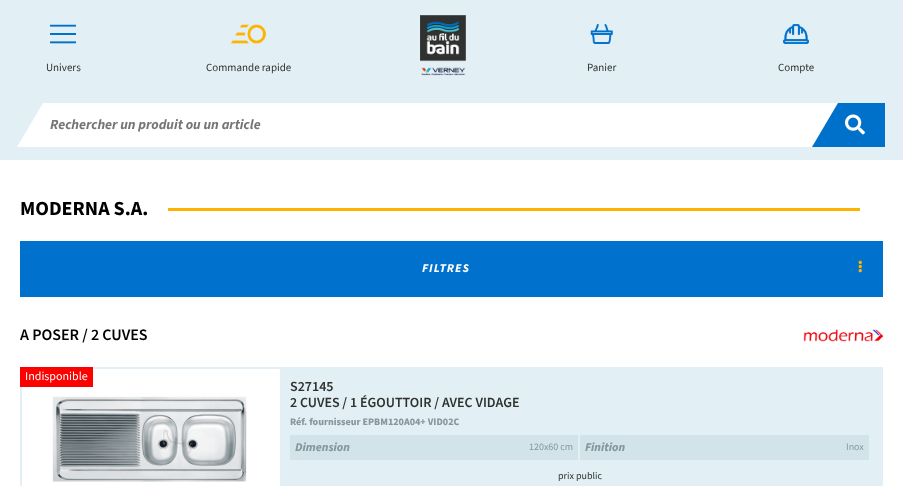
<svg xmlns="http://www.w3.org/2000/svg" width="903" height="486" viewBox="0 0 903 486">
  <defs>
    <clipPath id="clip1"><path d="M0 103h885v44H0z"/></clipPath>
  </defs>
  <rect width="100%" height="100%" fill="#fff"/>
  <path d="M0 0h903v160H0z" fill="#e2eff4"/>
  <image x="50" y="24" width="26" height="20" href="img/1.png"/>
  <image x="230" y="24" width="36" height="20" href="img/2.png"/>
  <image x="420" y="15" width="46" height="61" href="img/3.png"/>
  <image x="590" y="24" width="23" height="20" href="img/4.png"/>
  <image x="783" y="24" width="26" height="20" href="img/5.png"/>
  <path d="M43 103L17 147H812L838 103Z" fill="#fff"/>
  <g clip-path="url(#clip1)">
    <path d="M838 103L812 147H902L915 125V103Z" fill="#0071cb"/>
  </g>
  <image x="845" y="114" width="20" height="21" href="img/6.png"/>
  <path d="M168 208h692v3H168z" fill="#fdb300"/>
  <path d="M20 241h863v56H20z" fill="#0071cc"/>
  <image x="858" y="260" width="4" height="13" href="img/7.png"/>
  <image x="803" y="329" width="80" height="13" href="img/8.png"/>
  <path d="M93 367h790v2H93z" fill="#e2eff4"/>
  <path d="M881 367h2v119H881z" fill="#e2eff4"/>
  <path d="M20 387h2v99H20z" fill="#e2eff4"/>
  <path d="M280 369h601v117H280z" fill="#e2eff4"/>
  <path d="M20 367h73v20H20z" fill="#fd0000"/>
  <path d="M290 435h288v25H290z" fill="#d2e3ea"/>
  <path d="M580 435h289v25H580z" fill="#d2e3ea"/>
  <image x="52" y="396" width="195" height="86" href="img/9.png"/>
  <g font-family="'Source Sans 3'" font-size="11" fill="#2f312f">
    <text x="46" y="71">Univers</text>
    <text x="206" y="71">Commande rapide</text>
    <text x="587" y="71">Panier</text>
    <text x="778" y="71">Compte</text>
  </g>
  <text x="50" y="129" font-family="'Source Sans 3'" font-size="14" font-weight="bold" font-style="italic" fill="#757575">Rechercher un produit ou un article</text>
  <text x="20" y="215" font-family="'Source Sans 3'" font-size="20" font-weight="bold" fill="#000">MODERNA S.A.</text>
  <text x="422" y="272" font-family="'Source Sans 3'" font-size="12" font-weight="800" font-style="italic" letter-spacing="1" fill="#fff">FILTRES</text>
  <text x="20" y="340" font-family="'Source Sans 3'" font-size="16" font-weight="600" fill="#000">A POSER / 2 CUVES</text>
  <text x="25" y="380" font-family="'Source Sans 3'" font-size="12" fill="#fff">Indisponible</text>
  <text x="558" y="479" font-family="'Source Sans 3'" font-size="10" fill="#2f312f">prix public</text>
  <g font-family="'Source Sans 3'" font-size="14" font-weight="600" fill="#2f312f">
    <text x="290" y="391">S27145</text>
    <text x="290" y="407">2 CUVES / 1 ÉGOUTTOIR / AVEC VIDAGE</text>
  </g>
  <text x="290" y="425" font-family="'Source Sans 3'" font-size="10" font-weight="800" fill="#88979d">Réf. fournisseur EPBM120A04+ VID02C</text>
  <text x="295" y="451" font-family="'Source Sans 3'" font-size="12" font-weight="800" font-style="italic" fill="#88979d">Dimension</text>
  <text x="529" y="450" font-family="'Source Sans 3'" font-size="10" fill="#88979d">120x60 cm</text>
  <text x="585" y="451" font-family="'Source Sans 3'" font-size="12" font-weight="800" font-style="italic" fill="#88979d">Finition</text>
  <text x="846" y="450" font-family="'Source Sans 3'" font-size="10" fill="#88979d">Inox</text>
</svg>
